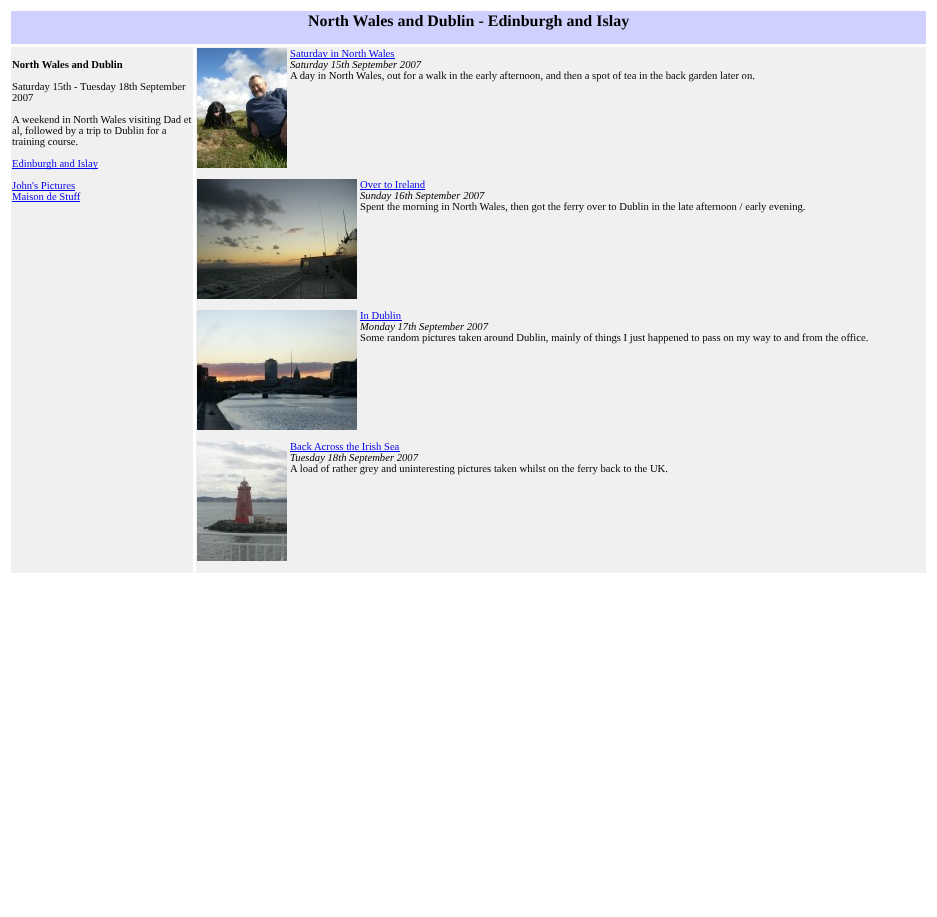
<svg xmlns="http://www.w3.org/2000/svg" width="937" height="917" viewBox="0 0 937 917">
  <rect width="100%" height="100%" fill="#fff"/>
  <path d="M11 11h915v33H11z" fill="#d0d0ff"/>
  <path d="M11 47h182v526H11z" fill="#f0f0f0"/>
  <path d="M12 168h86v1H12z" fill="#00e"/>
  <path d="M12 190h63v1H12z" fill="#00e"/>
  <path d="M12 201h68v1H12z" fill="#00e"/>
  <path d="M196 47h730v526H196z" fill="#f0f0f0"/>
  <image x="197" y="48" width="90" height="120" href="img/1.png"/>
  <path d="M290 58h105v1H290z" fill="#00e"/>
  <image x="197" y="179" width="160" height="120" href="img/2.png"/>
  <path d="M360 189h65v1H360z" fill="#00e"/>
  <image x="197" y="310" width="160" height="120" href="img/3.png"/>
  <path d="M360 320h42v1H360z" fill="#00e"/>
  <image x="197" y="441" width="90" height="120" href="img/4.png"/>
  <path d="M290 451h110v1H290z" fill="#00e"/>
  <text x="308" y="26" font-family="Liberation Serif" font-size="16" font-weight="bold" fill="#000">North Wales and Dublin - Edinburgh and Islay</text>
  <text x="12" y="68" font-family="Liberation Serif" font-size="10.65" font-weight="bold" fill="#000">North Wales and Dublin</text>
  <g font-family="Liberation Serif" font-size="10.65" fill="#000">
    <text x="12" y="90">Saturday 15th - Tuesday 18th September</text>
    <text x="12" y="101">2007</text>
    <text x="12" y="123">A weekend in North Wales visiting Dad et</text>
    <text x="12" y="134">al, followed by a trip to Dublin for a</text>
    <text x="12" y="145">training course.</text>
  </g>
  <g font-family="Liberation Serif" font-size="10.65" fill="#00e">
    <text x="12" y="167">Edinburgh and Islay</text>
    <text x="12" y="189">John's Pictures</text>
    <text x="12" y="200">Maison de Stuff</text>
    <text x="290" y="57">Saturday in North Wales</text>
  </g>
  <text x="290" y="68" font-family="Liberation Serif" font-size="10.65" font-style="italic" fill="#000">Saturday 15th September 2007</text>
  <text x="290" y="79" font-family="Liberation Serif" font-size="10.65" fill="#000">A day in North Wales, out for a walk in the early afternoon, and then a spot of tea in the back garden later on.</text>
  <text x="360" y="188" font-family="Liberation Serif" font-size="10.65" fill="#00e">Over to Ireland</text>
  <text x="360" y="199" font-family="Liberation Serif" font-size="10.65" font-style="italic" fill="#000">Sunday 16th September 2007</text>
  <text x="360" y="210" font-family="Liberation Serif" font-size="10.65" fill="#000">Spent the morning in North Wales, then got the ferry over to Dublin in the late afternoon / early evening.</text>
  <text x="360" y="319" font-family="Liberation Serif" font-size="10.65" fill="#00e">In Dublin</text>
  <text x="360" y="330" font-family="Liberation Serif" font-size="10.65" font-style="italic" fill="#000">Monday 17th September 2007</text>
  <text x="360" y="341" font-family="Liberation Serif" font-size="10.65" fill="#000">Some random pictures taken around Dublin, mainly of things I just happened to pass on my way to and from the office.</text>
  <text x="290" y="450" font-family="Liberation Serif" font-size="10.65" fill="#00e">Back Across the Irish Sea</text>
  <text x="290" y="461" font-family="Liberation Serif" font-size="10.65" font-style="italic" fill="#000">Tuesday 18th September 2007</text>
  <text x="290" y="472" font-family="Liberation Serif" font-size="10.65" fill="#000">A load of rather grey and uninteresting pictures taken whilst on the ferry back to the UK.</text>
</svg>
